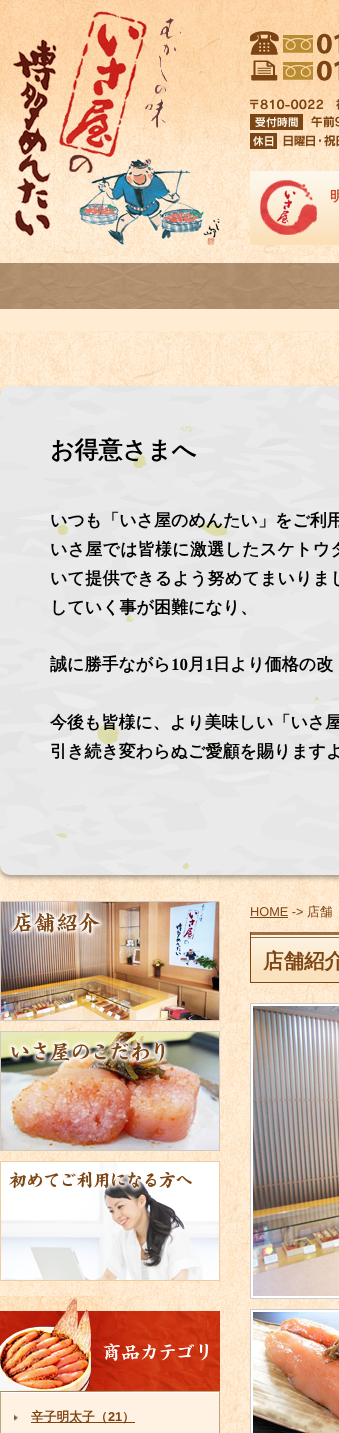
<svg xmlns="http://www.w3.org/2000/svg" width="339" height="1433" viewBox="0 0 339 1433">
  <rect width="100%" height="100%" fill="#ffecd3"/>
  <image x="0" y="0" width="339" height="263" href="img/1.png"/>
  <image x="0" y="0" width="220" height="248" href="img/2.png"/>
  <image x="250" y="30" width="89" height="119" href="img/3.png"/>
  <path d="M250 236h89v9H250z" fill="#fbe0b8"/>
  <image x="250" y="171" width="89" height="65" href="img/4.png"/>
  <image x="260" y="180" width="57" height="55" href="img/5.png"/>
  <image x="0" y="263" width="339" height="46" href="img/6.png"/>
  <image x="0" y="331" width="339" height="1102" href="img/7.png"/>
  <rect y="389" width="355" height="489" rx="10" fill="#00000052" filter="blur(2px)"/>
  <image x="0" y="386" width="339" height="489" href="img/8.png"/>
  <path d="M250 917h38v1H250z" fill="#7d4514"/>
  <path d="M251 969h88v13H251z" fill="#fbe2bf"/>
  <image x="251" y="932" width="88" height="37" href="img/9.png"/>
  <path d="M250 982h89v1H250z" fill="#7d4514"/>
  <path d="M250 932h1v51H250z" fill="#7d4514"/>
  <path d="M250.5 1003.5h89v295H250.5z" fill="#fff" stroke="#ccc"/>
  <image x="253" y="1006" width="86" height="290" href="img/10.png"/>
  <path d="M250.5 1309.5h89v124H250.5z" fill="#fff" stroke="#ccc"/>
  <image x="253" y="1312" width="86" height="121" href="img/11.png"/>
  <image x="0" y="901" width="220" height="120" href="img/12.png"/>
  <image x="0" y="1031" width="220" height="120" href="img/13.png"/>
  <image x="0" y="1161" width="220" height="120" href="img/14.png"/>
  <image x="0" y="1296" width="220" height="96" href="img/15.png"/>
  <path d="M219 1392h1v41H219z" fill="#b8a880"/>
  <path d="M0 1392h1v41H0z" fill="#b8a880"/>
  <path d="M1 1393h218v40H1z" fill="#fff2e2"/>
  <path d="M1 1392h218v1H1z" fill="#fff"/>
  <image x="14" y="1414" width="4" height="7" href="img/16.png"/>
  <path d="M31 1422h104v1H31z" fill="#7d4514"/>
  <text x="330" y="201" font-family="WenQuanYi Zen Hei" font-size="14" font-weight="bold" fill="#cd4824">明</text>
  <text x="50" y="458" font-family="WenQuanYi Zen Hei" font-size="24" font-weight="bold" fill="#000">お得意さまへ</text>
  <text x="50" y="526" font-family="WenQuanYi Zen Hei" font-size="17" font-weight="bold" fill="#000">いつも「いさ屋のめんたい」をご利用</text>
  <text x="50" y="555" font-family="WenQuanYi Zen Hei" font-size="17" font-weight="bold" letter-spacing="0.25" fill="#000">いさ屋では皆様に激選したスケトウダ</text>
  <text x="50" y="584" font-family="WenQuanYi Zen Hei" font-size="17" font-weight="bold" letter-spacing="0.2" fill="#000">いて提供できるよう努めてまいりまし</text>
  <g font-family="WenQuanYi Zen Hei" font-size="17" font-weight="bold" fill="#000">
    <text x="50" y="613">していく事が困難になり、</text>
    <text x="50" y="670">誠に勝手ながら</text>
  </g>
  <text x="171" y="670" font-family="Liberation Serif" font-size="17" font-weight="bold" fill="#000">10</text>
  <text x="188" y="670" font-family="WenQuanYi Zen Hei" font-size="17" font-weight="bold" fill="#000">月</text>
  <text x="205" y="670" font-family="Liberation Serif" font-size="17" font-weight="bold" fill="#000">1</text>
  <g font-family="WenQuanYi Zen Hei" font-size="17" font-weight="bold" fill="#000">
    <text x="213" y="670">日より価格の改</text>
    <text x="50" y="728">今後も皆様に、より美味しい「いさ屋</text>
    <text x="50" y="757">引き続き変わらぬご愛顧を賜りますよ</text>
  </g>
  <text x="250" y="916" font-family="Liberation Sans" font-size="12.75" fill="#7d4514">HOME -&gt;</text>
  <text x="307" y="916" font-family="WenQuanYi Zen Hei" font-size="12.75" font-weight="500" fill="#7d4514">店舗</text>
  <text x="263" y="968" font-family="WenQuanYi Zen Hei" font-size="20.5" font-weight="bold" fill="#7d4514">店舗紹介</text>
  <text x="31" y="1421" font-family="WenQuanYi Zen Hei" font-size="12.75" font-weight="bold" fill="#7d4514">辛子明太子（</text>
  <text x="108" y="1421" font-family="Liberation Sans" font-size="12.75" font-weight="bold" fill="#7d4514">21</text>
  <text x="122" y="1421" font-family="WenQuanYi Zen Hei" font-size="12.75" font-weight="bold" fill="#7d4514">）</text>
</svg>
